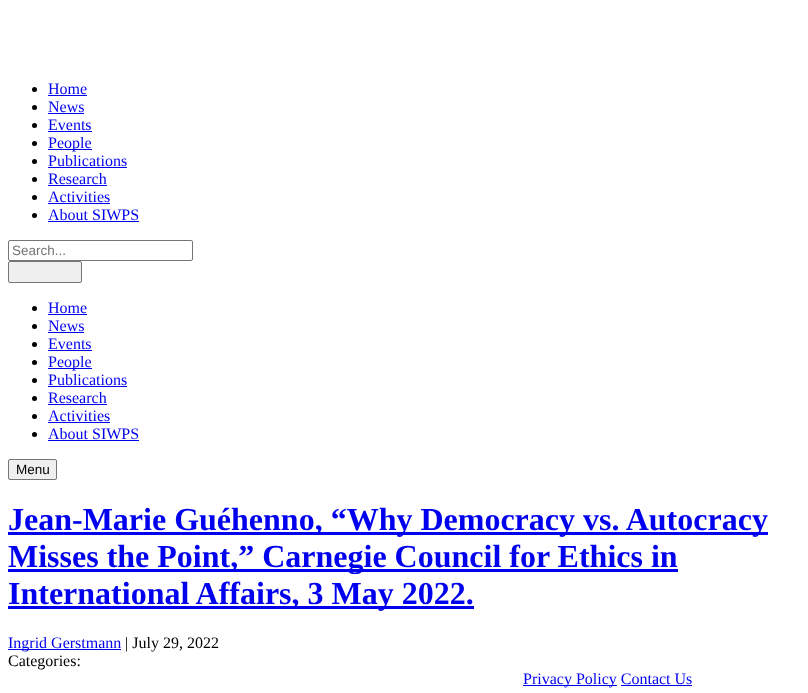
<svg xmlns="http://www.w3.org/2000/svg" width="808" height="693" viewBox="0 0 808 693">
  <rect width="100%" height="100%" fill="#fff"/>
  <circle cx="34.5" cy="89.5" r="2.5" fill="#000"/>
  <path d="M48 95h39v1H48z" fill="#00e"/>
  <circle cx="34.5" cy="107.5" r="2.5" fill="#000"/>
  <path d="M48 113h36v1H48z" fill="#00e"/>
  <circle cx="34.5" cy="125.5" r="2.5" fill="#000"/>
  <path d="M48 131h44v1H48z" fill="#00e"/>
  <circle cx="34.5" cy="143.5" r="2.5" fill="#000"/>
  <path d="M48 149h44v1H48z" fill="#00e"/>
  <circle cx="34.5" cy="161.5" r="2.5" fill="#000"/>
  <path d="M48 167h79v1H48z" fill="#00e"/>
  <circle cx="34.5" cy="179.5" r="2.5" fill="#000"/>
  <path d="M48 185h59v1H48z" fill="#00e"/>
  <circle cx="34.5" cy="197.5" r="2.5" fill="#000"/>
  <path d="M48 203h62v1H48z" fill="#00e"/>
  <circle cx="34.5" cy="215.5" r="2.5" fill="#000"/>
  <path d="M48 221h91v1H48z" fill="#00e"/>
  <rect x="8.5" y="240.5" width="184" height="20" rx="1.5" fill="none" stroke="#767676"/>
  <rect x="8.5" y="261.5" width="73" height="21" rx="1.5" fill="#efefef" stroke="#767676"/>
  <circle cx="34.5" cy="308.5" r="2.5" fill="#000"/>
  <path d="M48 314h39v1H48z" fill="#00e"/>
  <circle cx="34.5" cy="326.5" r="2.5" fill="#000"/>
  <path d="M48 332h36v1H48z" fill="#00e"/>
  <circle cx="34.5" cy="344.5" r="2.5" fill="#000"/>
  <path d="M48 350h44v1H48z" fill="#00e"/>
  <circle cx="34.5" cy="362.5" r="2.5" fill="#000"/>
  <path d="M48 368h44v1H48z" fill="#00e"/>
  <circle cx="34.5" cy="380.5" r="2.5" fill="#000"/>
  <path d="M48 386h79v1H48z" fill="#00e"/>
  <circle cx="34.5" cy="398.5" r="2.5" fill="#000"/>
  <path d="M48 404h59v1H48z" fill="#00e"/>
  <circle cx="34.5" cy="416.5" r="2.5" fill="#000"/>
  <path d="M48 422h62v1H48z" fill="#00e"/>
  <circle cx="34.5" cy="434.5" r="2.5" fill="#000"/>
  <path d="M48 440h91v1H48z" fill="#00e"/>
  <rect x="8.5" y="459.5" width="48" height="20" rx="1.5" fill="#efefef" stroke="#767676"/>
  <path d="M8 532h760v3H8z" fill="#00e"/>
  <path d="M8 569h670v3H8z" fill="#00e"/>
  <path d="M8 606h466v3H8z" fill="#00e"/>
  <path d="M8 649h113v1H8z" fill="#00e"/>
  <path d="M523 685h94v1H523z" fill="#00e"/>
  <path d="M621 685h71v1H621z" fill="#00e"/>
  <g font-family="Liberation Serif" font-size="16" fill="#00e">
    <text x="48" y="94">Home</text>
    <text x="48" y="112">News</text>
    <text x="48" y="130">Events</text>
    <text x="48" y="148">People</text>
    <text x="48" y="166">Publications</text>
    <text x="48" y="184">Research</text>
    <text x="48" y="202">Activities</text>
    <text x="48" y="220">About SIWPS</text>
  </g>
  <text x="12" y="255" font-family="Liberation Sans" font-size="13.5" fill="#757575">Search...</text>
  <g font-family="Liberation Serif" font-size="16" fill="#00e">
    <text x="48" y="313">Home</text>
    <text x="48" y="331">News</text>
    <text x="48" y="349">Events</text>
    <text x="48" y="367">People</text>
    <text x="48" y="385">Publications</text>
    <text x="48" y="403">Research</text>
    <text x="48" y="421">Activities</text>
    <text x="48" y="439">About SIWPS</text>
  </g>
  <text x="16" y="474" font-family="Liberation Sans" font-size="13.5" fill="#000">Menu</text>
  <g font-family="Liberation Serif" font-size="32" font-weight="bold" fill="#00e">
    <text x="8" y="530">Jean-Marie Guéhenno, “Why Democracy vs. Autocracy</text>
    <text x="8" y="567">Misses the Point,” Carnegie Council for Ethics in</text>
    <text x="8" y="604">International Affairs, 3 May 2022.</text>
  </g>
  <text x="8" y="648" font-family="Liberation Serif" font-size="16" fill="#00e">Ingrid Gerstmann</text>
  <g font-family="Liberation Serif" font-size="16" fill="#000">
    <text x="125" y="648">| July 29, 2022</text>
    <text x="8" y="666">Categories:</text>
  </g>
  <text x="523" y="684" font-family="Liberation Serif" font-size="16" fill="#00e">Privacy Policy Contact Us</text>
</svg>
